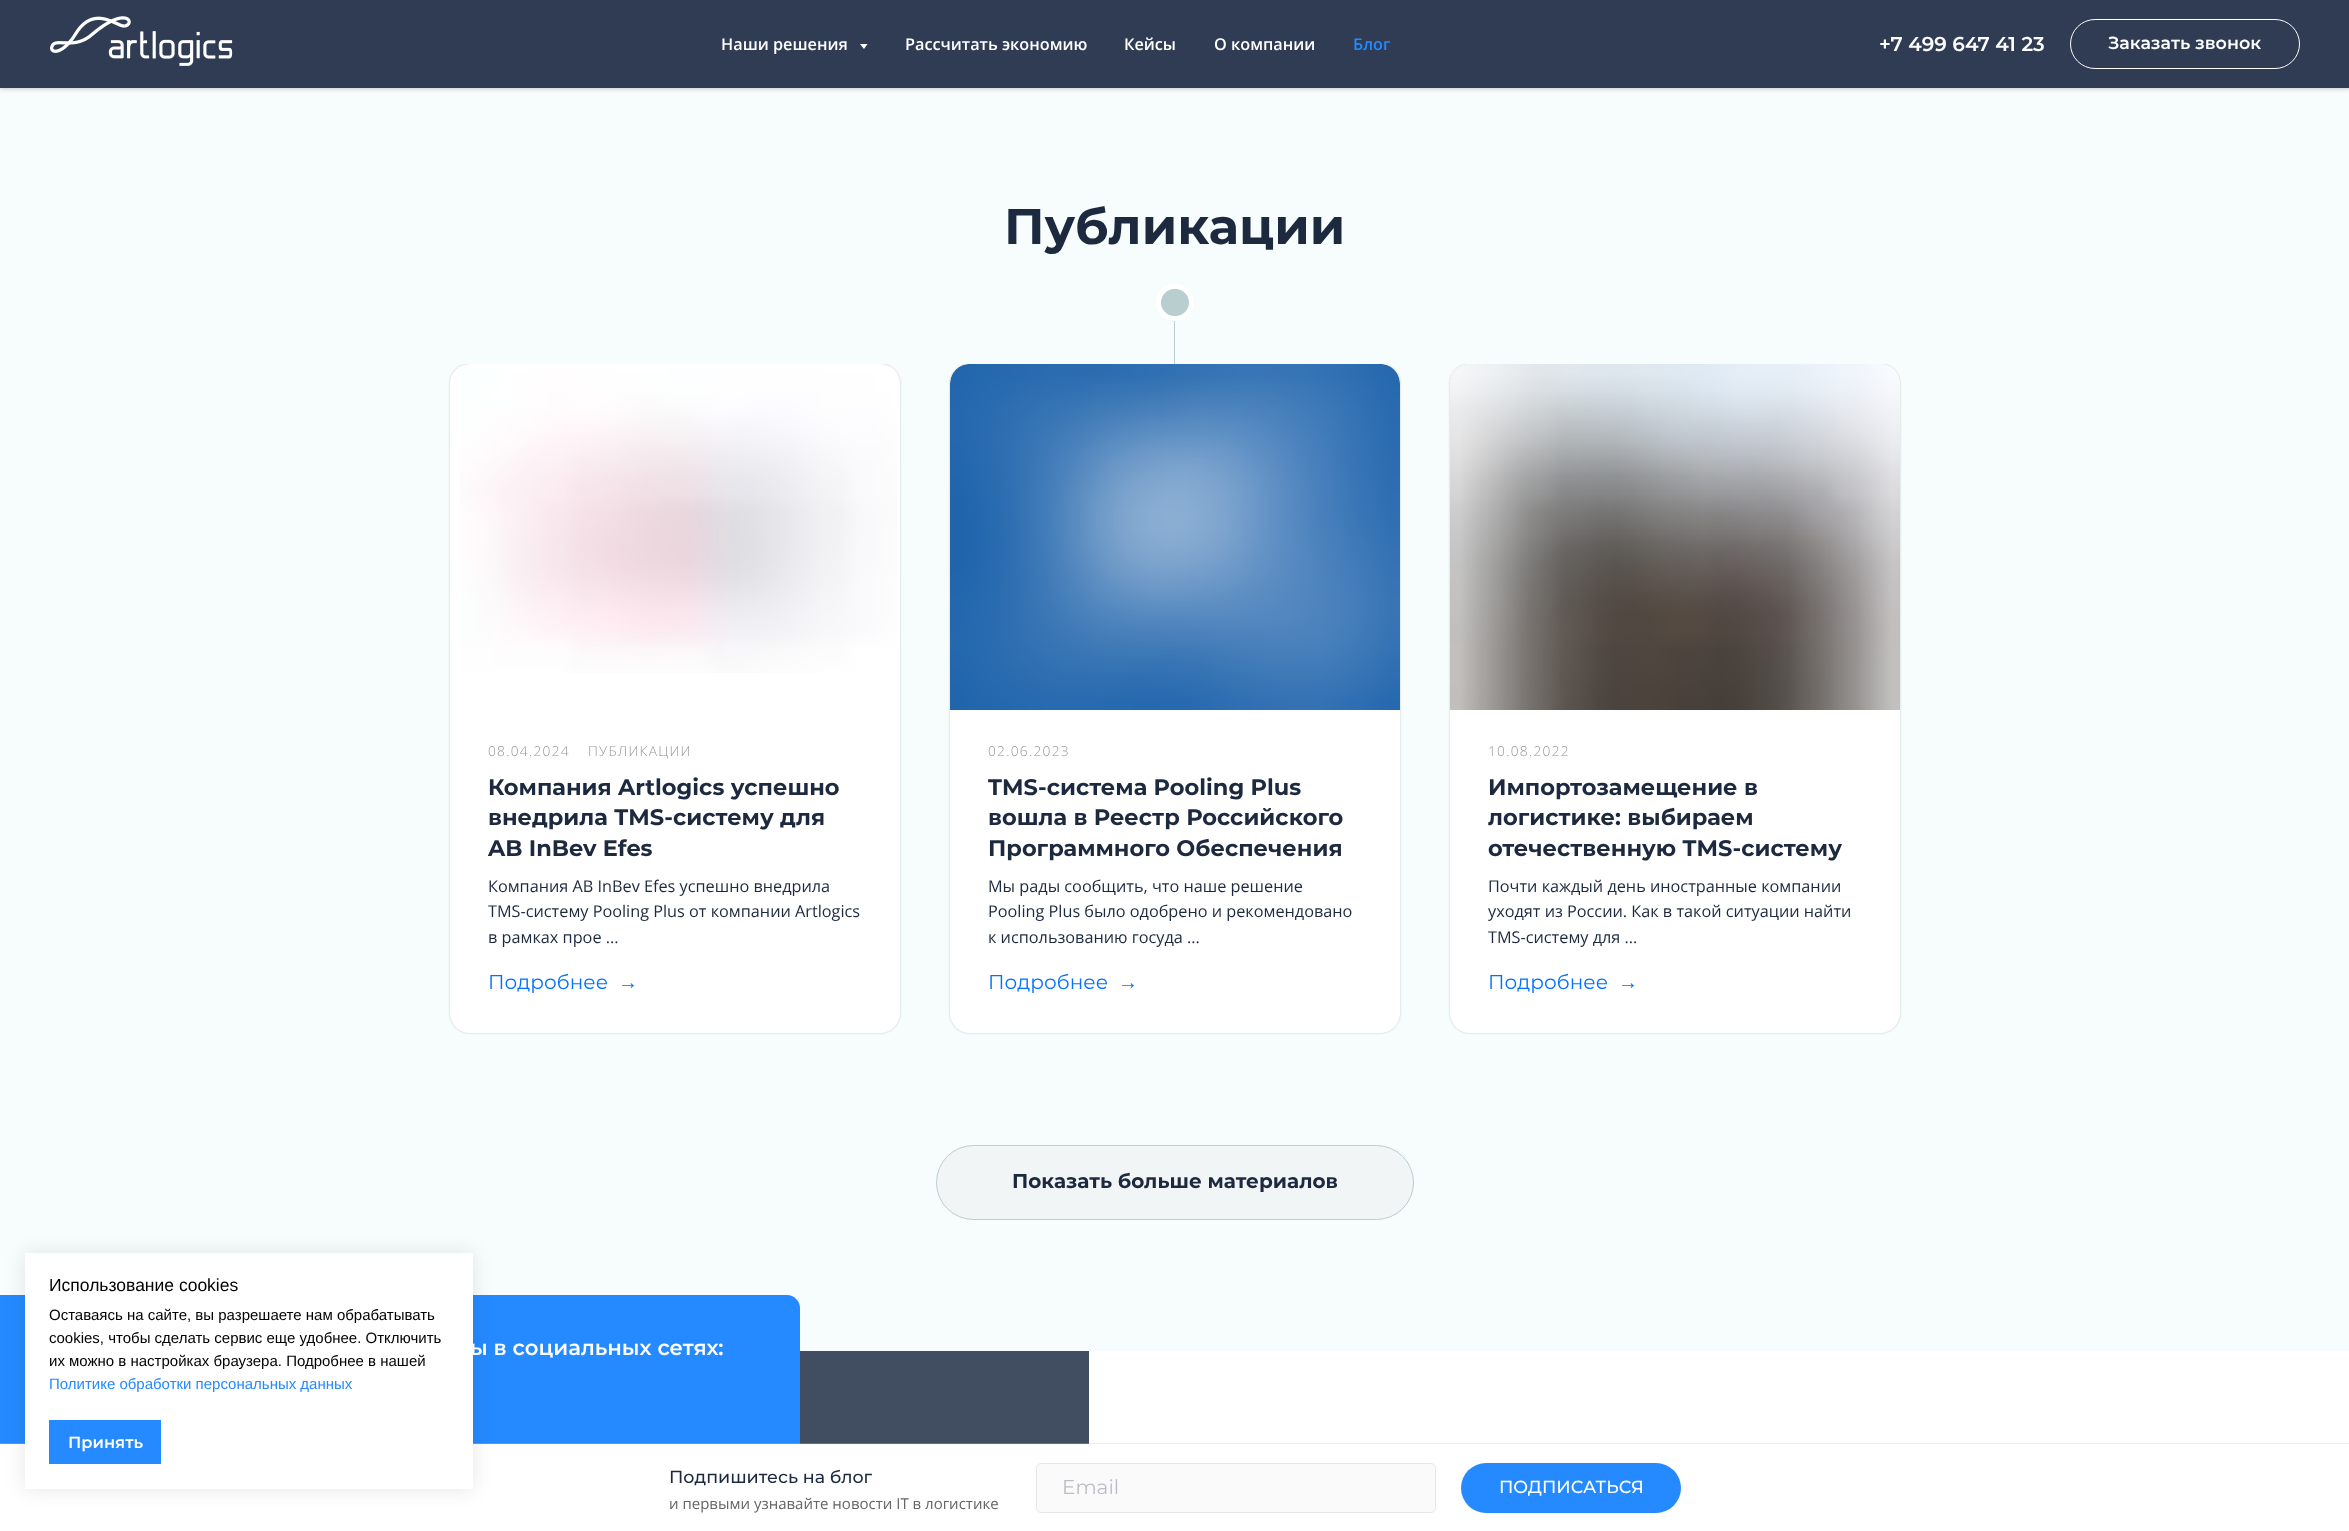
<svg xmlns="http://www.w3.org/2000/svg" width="2349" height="1531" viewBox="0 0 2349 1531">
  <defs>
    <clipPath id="clip1"><path d="M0 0H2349V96H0ZM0 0H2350V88H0Z" clip-rule="evenodd"/></clipPath>
    <clipPath id="clip2"><path d="M988 773h375v91H988z"/></clipPath>
    <clipPath id="clip3"><path d="M1488 773h375v91H1488z"/></clipPath>
    <clipPath id="clip4"><path d="M1488 874h375v75H1488z"/></clipPath>
  </defs>
  <rect width="100%" height="100%" fill="#fff"/>
  <path d="M0 26h2349v100H0z" fill="#f7fcfc"/>
  <g clip-path="url(#clip1)">
    <path d="M0 1h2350v88H0z" fill="#00000033" filter="blur(2px)"/>
  </g>
  <path d="M0 0h2349v88H0z" fill="#24324af2"/>
  <image x="50" y="16" width="183" height="50" href="img/1.png"/>
  <path d="M860 44H867.5L864 49Z" fill="#fff"/>
  <rect x="2070.5" y="19.5" width="229" height="49" rx="24.5" fill="none" stroke="#fff"/>
  <path d="M0 364h2349v987H0z" fill="#f7fcfc"/>
  <rect x="450" y="364" width="450" height="669" rx="20" fill="#00000033" filter="blur(1px)"/>
  <rect x="950" y="364" width="450" height="669" rx="20" fill="#00000033" filter="blur(1px)"/>
  <rect x="1450" y="364" width="450" height="669" rx="20" fill="#00000033" filter="blur(1px)"/>
  <path d="M0 126h2349v238H0z" fill="#f7fcfc"/>
  <rect x="1158.5" y="286.5" width="33" height="32" rx="16" fill="#b9cece" stroke="#fff" stroke-width="5"/>
  <path d="M1174 321h1v43H1174z" fill="#b9cece"/>
  <rect x="450" y="364" width="450" height="669" rx="20" fill="#fff"/>
  <image x="460" y="367" width="437" height="306" href="img/2.png"/>
  <rect x="950" y="364" width="450" height="669" rx="20" fill="#fff"/>
  <image x="950" y="364" width="450" height="346" href="img/3.png"/>
  <rect x="1450" y="364" width="450" height="669" rx="20" fill="#fff"/>
  <image x="1450" y="364" width="450" height="346" href="img/4.png"/>
  <rect x="936.5" y="1145.5" width="477" height="74" rx="37" fill="#f1f5f5" stroke="#b9cece"/>
  <path d="M799 1351h290v93H799z" fill="#414d60"/>
  <path d="M0 1295H787C794 1295 800 1301 800 1308V1442C800 1449 794 1455 787 1455H0Z" fill="#258aff"/>
  <path d="M0 1444h800v11H0z" fill="#fff"/>
  <path d="M0 1443h2349v1H0z" fill="#c2c2c24d"/>
  <path d="M25 1253h448v236H25z" fill="#0000001a" filter="blur(9.5px)"/>
  <path d="M25 1253h448v236H25z" fill="#fff"/>
  <path d="M49 1420h112v44H49z" fill="#258aff"/>
  <rect x="1036.5" y="1463.5" width="399" height="49" rx="4.5" fill="#fafafa" stroke="#e6e6e6"/>
  <rect x="1461" y="1463" width="220" height="50" rx="25" fill="#258aff"/>
  <g font-family="Open Sans" font-size="16.25" font-weight="600" fill="#fff">
    <text x="721" y="50">Наши решения</text>
    <text x="905" y="50">Рассчитать экономию</text>
    <text x="1124" y="50">Кейсы</text>
    <text x="1214" y="50">О компании</text>
  </g>
  <text x="1353" y="50" font-family="Open Sans" font-size="16.25" font-weight="600" fill="#258aff">Блог</text>
  <text x="1879" y="51" font-family="Montserrat" font-size="20" font-weight="600" fill="#fff">+7 499 647 41 23</text>
  <text x="2108" y="49" font-family="Montserrat" font-size="17.5" font-weight="600" fill="#fff">Заказать звонок</text>
  <text x="1004" y="244" font-family="Montserrat" font-size="50" font-weight="bold" fill="#1d293f">Публикации</text>
  <g font-family="Open Sans" font-size="13.75" font-weight="300" letter-spacing="1.25" fill="#949494">
    <text x="488" y="756">08.04.2024</text>
    <text x="588" y="756">ПУБЛИКАЦИИ</text>
  </g>
  <g font-family="Montserrat" font-size="22.5" font-weight="bold" fill="#1d293f">
    <text x="488" y="795">Компания Artlogics успешно</text>
    <text x="488" y="825">внедрила TMS-систему для</text>
    <text x="488" y="856">AB InBev Efes</text>
  </g>
  <g font-family="Open Sans" font-size="16.25" fill="#1d293f">
    <text x="488" y="892">Компания AB InBev Efes успешно внедрила</text>
    <text x="488" y="917">TMS-систему Pooling Plus от компании Artlogics</text>
    <text x="488" y="943">в рамках прое ...</text>
  </g>
  <text x="488" y="989" font-family="Montserrat" font-size="20" fill="#0472ff">Подробнее</text>
  <text x="618" y="989" font-family="Liberation Sans" font-size="20" fill="#0472ff">→</text>
  <text x="988" y="756" font-family="Open Sans" font-size="13.75" font-weight="300" letter-spacing="1.25" fill="#949494">02.06.2023</text>
  <g clip-path="url(#clip2)">
    <text x="988" y="795" font-family="Montserrat" font-size="22.5" font-weight="bold" fill="#1d293f">TMS-система Pooling Plus</text>
  </g>
  <g font-family="Montserrat" font-size="22.5" font-weight="bold" fill="#1d293f">
    <text x="988" y="825">вошла в Реестр Российского</text>
    <text x="988" y="856">Программного Обеспечения</text>
  </g>
  <g font-family="Open Sans" font-size="16.25" fill="#1d293f">
    <text x="988" y="892">Мы рады сообщить, что наше решение</text>
    <text x="988" y="917">Pooling Plus было одобрено и рекомендовано</text>
    <text x="988" y="943">к использованию госуда ...</text>
  </g>
  <text x="988" y="989" font-family="Montserrat" font-size="20" fill="#0472ff">Подробнее</text>
  <text x="1118" y="989" font-family="Liberation Sans" font-size="20" fill="#0472ff">→</text>
  <text x="1488" y="756" font-family="Open Sans" font-size="13.75" font-weight="300" letter-spacing="1.25" fill="#949494">10.08.2022</text>
  <text x="1488" y="795" font-family="Montserrat" font-size="22.5" font-weight="bold" fill="#1d293f">Импортозамещение в</text>
  <g clip-path="url(#clip3)">
    <text x="1488" y="825" font-family="Montserrat" font-size="22.5" font-weight="bold" fill="#1d293f">логистике: выбираем</text>
  </g>
  <text x="1488" y="856" font-family="Montserrat" font-size="22.5" font-weight="bold" fill="#1d293f">отечественную TMS-систему</text>
  <text x="1488" y="892" font-family="Open Sans" font-size="16.25" fill="#1d293f">Почти каждый день иностранные компании</text>
  <g clip-path="url(#clip4)">
    <text x="1488" y="917" font-family="Open Sans" font-size="16.25" fill="#1d293f">уходят из России. Как в такой ситуации найти</text>
  </g>
  <text x="1488" y="943" font-family="Open Sans" font-size="16.25" fill="#1d293f">TMS-систему для ...</text>
  <text x="1488" y="989" font-family="Montserrat" font-size="20" fill="#0472ff">Подробнее</text>
  <text x="1618" y="989" font-family="Liberation Sans" font-size="20" fill="#0472ff">→</text>
  <text x="1012" y="1188" font-family="Montserrat" font-size="20" font-weight="bold" fill="#1d293f">Показать больше материалов</text>
  <text x="49" y="1291" font-family="Liberation Sans" font-size="17.5" fill="#000">Использование cookies</text>
  <g font-family="Liberation Sans" font-size="15" fill="#000">
    <text x="49" y="1320">Оставаясь на сайте, вы разрешаете нам обрабатывать</text>
    <text x="49" y="1343">cookies, чтобы сделать сервис еще удобнее. Отключить</text>
    <text x="49" y="1366">их можно в настройках браузера. Подробнее в нашей</text>
  </g>
  <text x="49" y="1389" font-family="Liberation Sans" font-size="15" fill="#258aff">Политике обработки персональных данных</text>
  <text x="68" y="1448" font-family="Montserrat" font-size="16.25" font-weight="600" fill="#fff">Принять</text>
  <text x="470" y="1355" font-family="Montserrat" font-size="21.25" font-weight="600" fill="#fff">ы в социальных сетях:</text>
  <text x="669" y="1483" font-family="Montserrat" font-size="17.5" font-weight="500" fill="#1d293f">Подпишитесь на блог</text>
  <text x="669" y="1509" font-family="Open Sans" font-size="15" fill="#656565">и первыми узнавайте новости IT в логистике</text>
  <text x="1062" y="1494" font-family="Montserrat" font-size="20" fill="#babfc5">Email</text>
  <text x="1499" y="1493" font-family="Montserrat" font-size="17.5" font-weight="500" fill="#fff">ПОДПИСАТЬСЯ</text>
</svg>
